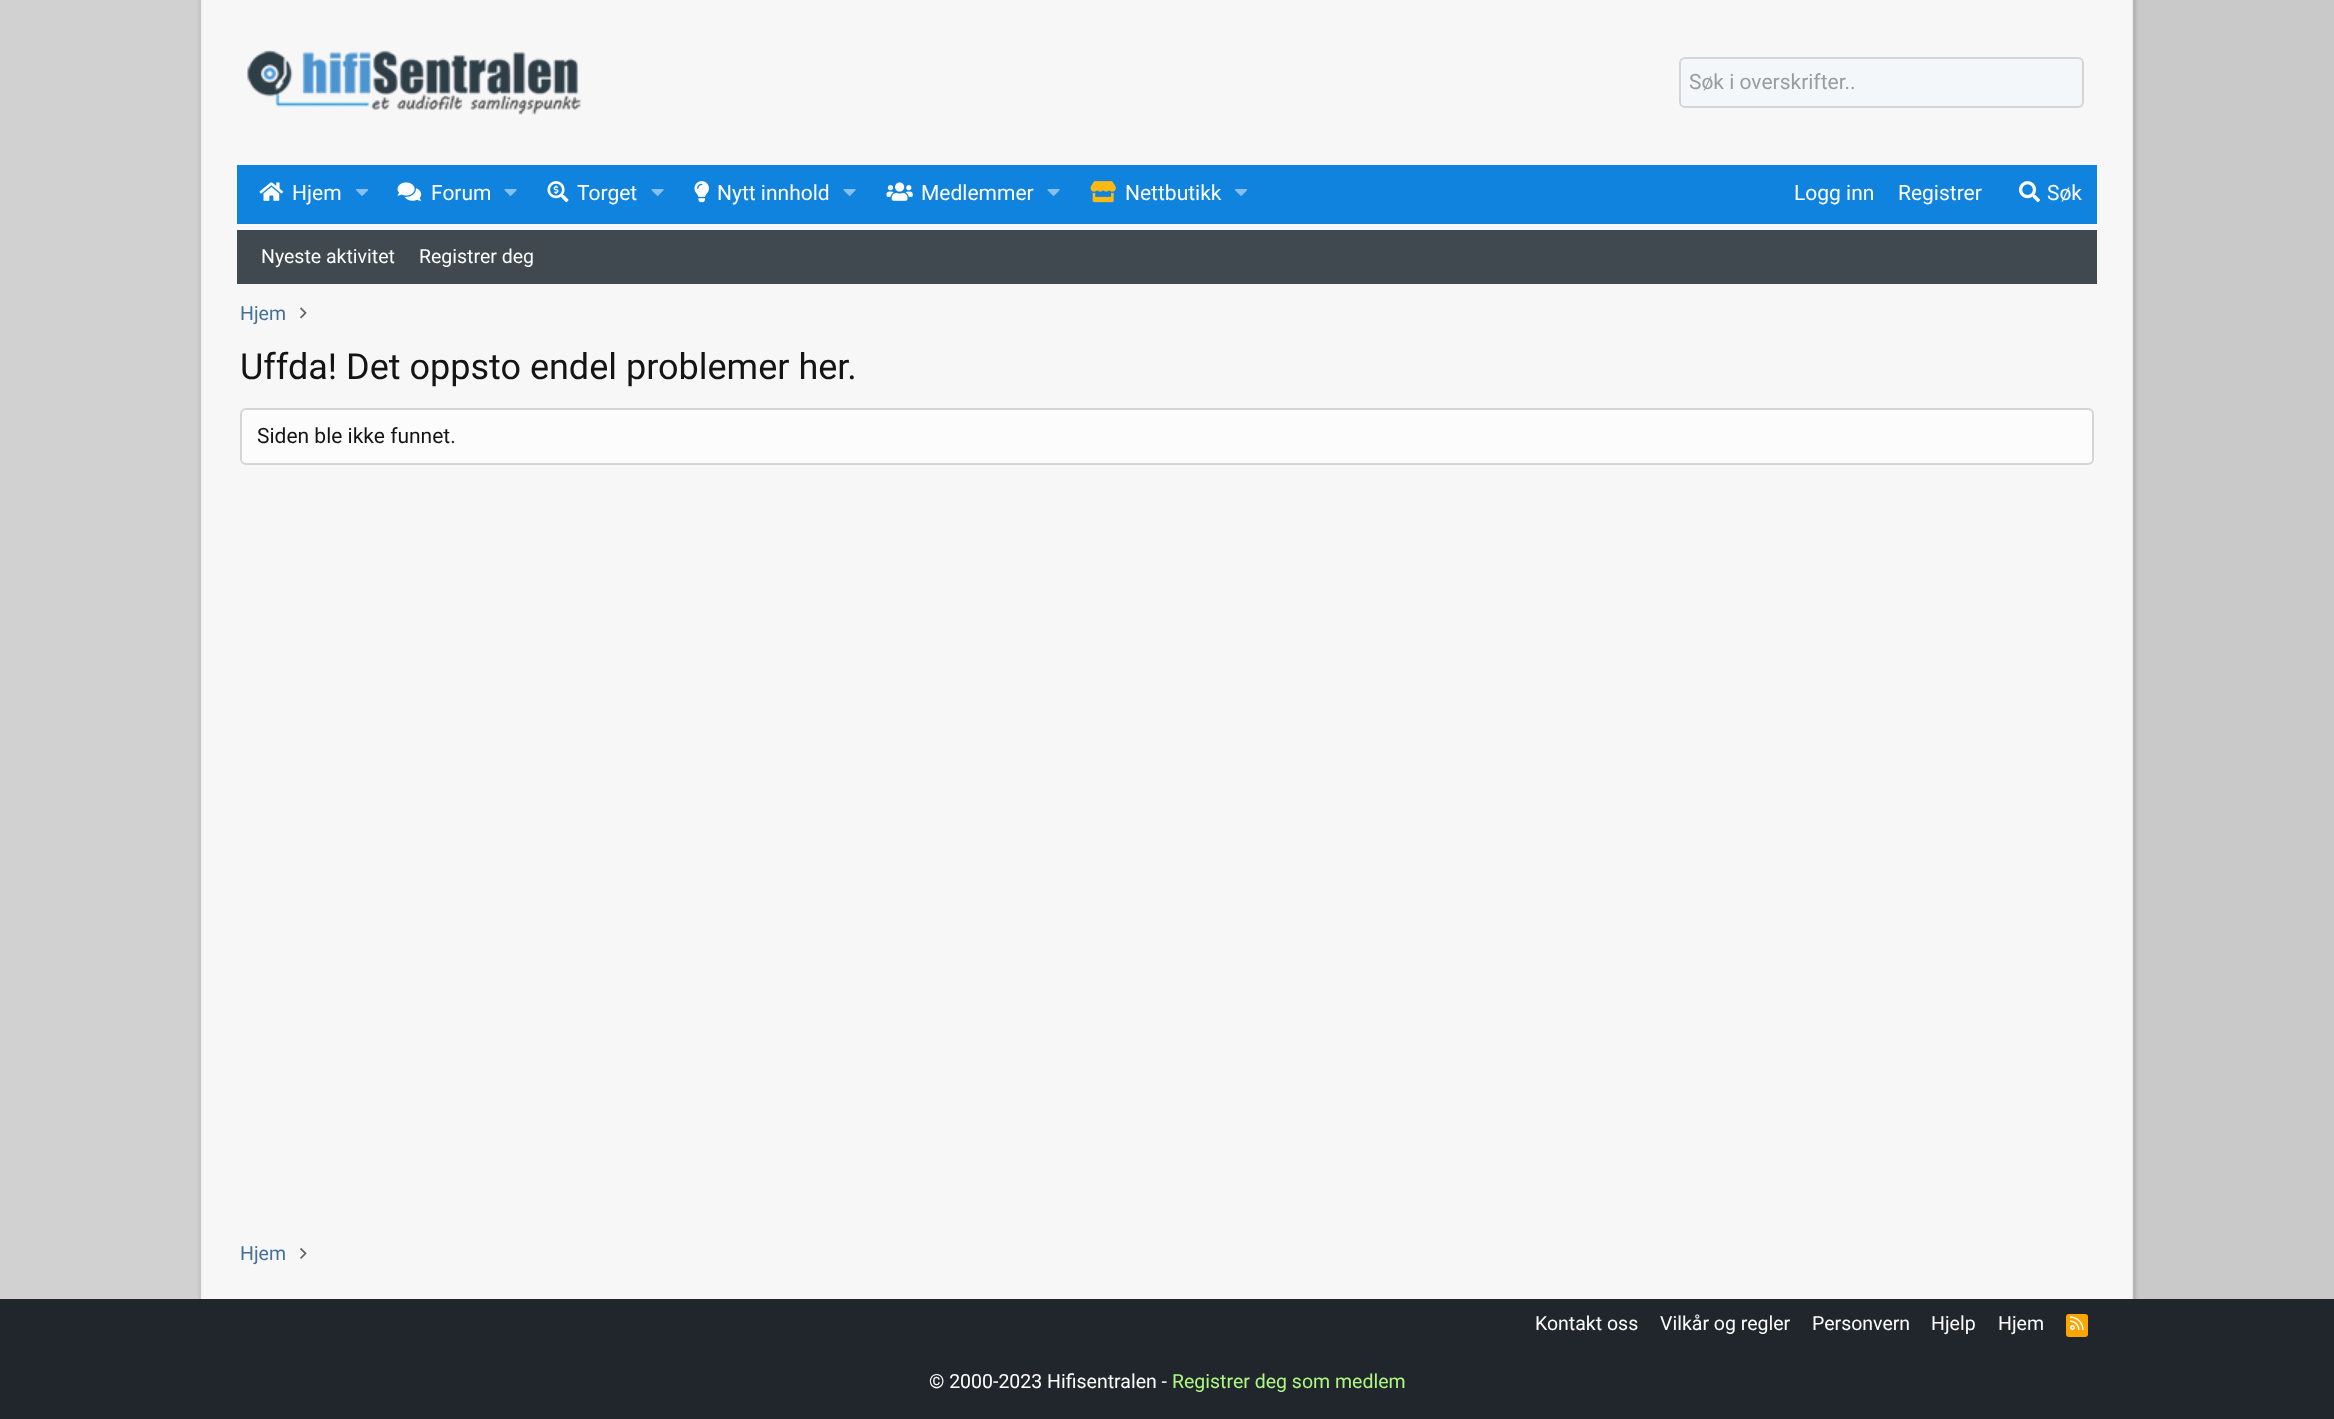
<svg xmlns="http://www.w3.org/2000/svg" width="2334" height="1419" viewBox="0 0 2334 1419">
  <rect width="100%" height="100%" fill="#fff"/>
  <image x="0" y="0" width="2334" height="1299" href="img/1.png"/>
  <image x="247" y="50" width="334" height="65" href="img/2.png"/>
  <rect x="1680" y="58" width="403" height="49" rx="5" fill="#f3f7fa" stroke="#d5d5d5" stroke-width="2"/>
  <path d="M237 165h1860v59H237z" fill="#1083df"/>
  <image x="259" y="182" width="25" height="19" href="img/3.png"/>
  <image x="356" y="189" width="13" height="7" href="img/4.png"/>
  <image x="397" y="182" width="25" height="19" href="img/5.png"/>
  <image x="504" y="189" width="13" height="7" href="img/6.png"/>
  <image x="547" y="181" width="22" height="22" href="img/7.png"/>
  <image x="651" y="189" width="13" height="7" href="img/6.png"/>
  <image x="694" y="181" width="15" height="22" href="img/8.png"/>
  <image x="843" y="189" width="13" height="7" href="img/6.png"/>
  <image x="886" y="182" width="27" height="19" href="img/9.png"/>
  <image x="1047" y="189" width="13" height="7" href="img/6.png"/>
  <image x="1090" y="181" width="26" height="22" href="img/10.png"/>
  <image x="1235" y="189" width="13" height="7" href="img/4.png"/>
  <image x="2019" y="181" width="21" height="22" href="img/11.png"/>
  <path d="M237 230h1860v54H237z" fill="#3f494f"/>
  <image x="300" y="307" width="7" height="12" href="img/12.png"/>
  <rect x="241" y="409" width="1852" height="55" rx="5" fill="#fcfcfc" stroke="#d5d5d5" stroke-width="2"/>
  <image x="300" y="1248" width="7" height="11" href="img/13.png"/>
  <path d="M0 1299h2334v120H0z" fill="#20262b"/>
  <rect x="2066" y="1314" width="22" height="23" rx="3" fill="#ffa500"/>
  <image x="2070" y="1316" width="14" height="14" href="img/14.png"/>
  <text x="1689" y="89" font-family="Roboto" font-size="21" fill="#9a9c9e">Søk i overskrifter..</text>
  <g font-family="Roboto" font-size="21" fill="#fdfdfd">
    <text x="292" y="200">Hjem</text>
    <text x="431" y="200">Forum</text>
    <text x="577" y="200">Torget</text>
    <text x="717" y="200">Nytt innhold</text>
    <text x="921" y="200">Medlemmer</text>
    <text x="1125" y="200">Nettbutikk</text>
    <text x="1794" y="200">Logg inn</text>
    <text x="1898" y="200">Registrer</text>
    <text x="2047" y="200">Søk</text>
  </g>
  <g font-family="Roboto" font-size="19.5" fill="#fdfdfd">
    <text x="261" y="263">Nyeste aktivitet</text>
    <text x="419" y="263">Registrer deg</text>
  </g>
  <text x="240" y="320" font-family="Roboto" font-size="19.5" fill="#437197">Hjem</text>
  <text x="240" y="379" font-family="Roboto" font-size="36" fill="#141414">Uffda! Det oppsto endel problemer her.</text>
  <text x="257" y="443" font-family="Roboto" font-size="21" fill="#141414">Siden ble ikke funnet.</text>
  <text x="240" y="1260" font-family="Roboto" font-size="19.5" fill="#437197">Hjem</text>
  <g font-family="Roboto" font-size="19.5" fill="#fdfdfd">
    <text x="1535" y="1330">Kontakt oss</text>
    <text x="1660" y="1330">Vilkår og regler</text>
    <text x="1812" y="1330">Personvern</text>
    <text x="1931" y="1330">Hjelp</text>
    <text x="1998" y="1330">Hjem</text>
    <text x="929" y="1388">© 2000-2023 Hifisentralen -</text>
  </g>
  <text x="1172" y="1388" font-family="Roboto" font-size="19.5" fill="#acf883">Registrer deg som medlem</text>
</svg>
